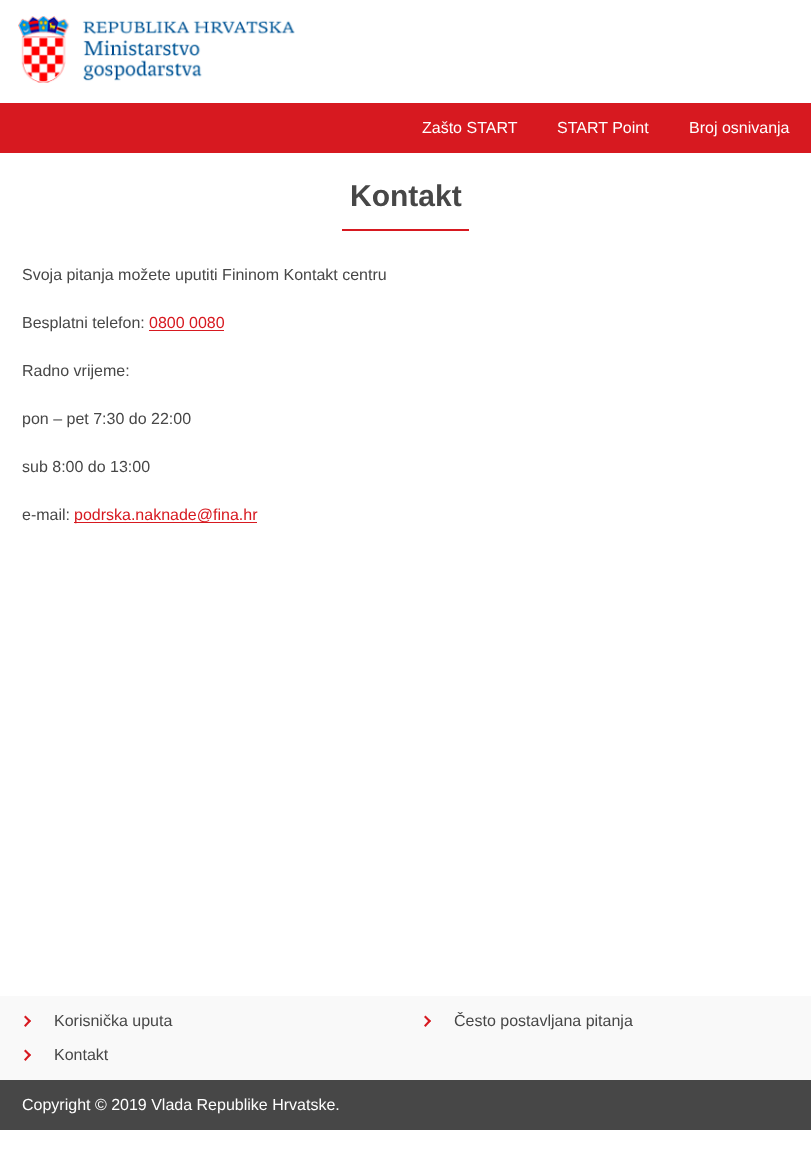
<svg xmlns="http://www.w3.org/2000/svg" width="811" height="1172" viewBox="0 0 811 1172">
  <rect width="100%" height="100%" fill="#fff"/>
  <image x="18" y="16" width="277" height="67" href="img/1.png"/>
  <path d="M0 103h811v50H0z" fill="#d71920"/>
  <path d="M342 229h127v2H342z" fill="#d71920"/>
  <path d="M149 330h75v1H149z" fill="#d71920"/>
  <path d="M74 522h183v1H74z" fill="#d71920"/>
  <path d="M0 996h811v84H0z" fill="#f9f9f9"/>
  <path d="M25.5 1015.5L31 1021L29.5 1022.5L24 1017Z" fill="#d71920"/>
  <path d="M29.5 1019.5L31 1021L25.5 1027L24 1025.5Z" fill="#d71920"/>
  <path d="M425.5 1015.5L431 1021L429.5 1022.5L424 1017Z" fill="#d71920"/>
  <path d="M429.5 1019.5L431 1021L425.5 1027L424 1025.5Z" fill="#d71920"/>
  <path d="M25.5 1049.5L31 1055L29.5 1056.5L24 1051Z" fill="#d71920"/>
  <path d="M29.5 1053.5L31 1055L25.5 1061L24 1059.5Z" fill="#d71920"/>
  <path d="M0 1080h811v50H0z" fill="#474747"/>
  <g font-family="Liberation Sans" font-size="16" fill="#fff">
    <text x="422" y="133">Zašto START</text>
    <text x="557" y="133">START Point</text>
    <text x="689" y="133">Broj osnivanja</text>
  </g>
  <text x="350" y="206" font-family="Liberation Sans" font-size="30" font-weight="bold" fill="#474747">Kontakt</text>
  <g font-family="Liberation Sans" font-size="16" fill="#474747">
    <text x="22" y="280">Svoja pitanja možete uputiti Fininom Kontakt centru</text>
    <text x="22" y="328">Besplatni telefon:</text>
  </g>
  <text x="149" y="328" font-family="Liberation Sans" font-size="16" fill="#d71920">0800 0080</text>
  <g font-family="Liberation Sans" font-size="16" fill="#474747">
    <text x="22" y="376">Radno vrijeme:</text>
    <text x="22" y="424">pon – pet 7:30 do 22:00</text>
    <text x="22" y="472">sub 8:00 do 13:00</text>
    <text x="22" y="520">e-mail:</text>
  </g>
  <text x="74" y="520" font-family="Liberation Sans" font-size="16" fill="#d71920">podrska.naknade@fina.hr</text>
  <g font-family="Liberation Sans" font-size="16" fill="#474747">
    <text x="54" y="1026">Korisnička uputa</text>
    <text x="454" y="1026">Često postavljana pitanja</text>
    <text x="54" y="1060">Kontakt</text>
  </g>
  <text x="22" y="1110" font-family="Liberation Sans" font-size="16" fill="#fff">Copyright © 2019 Vlada Republike Hrvatske.</text>
</svg>
